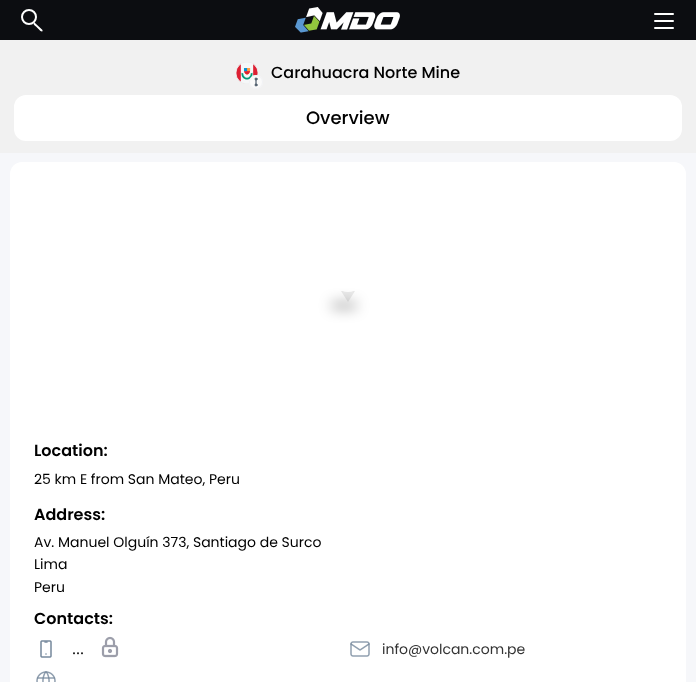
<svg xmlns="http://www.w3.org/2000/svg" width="696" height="682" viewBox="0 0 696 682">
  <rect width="100%" height="100%" fill="#f6f7fa"/>
  <path d="M0 40h696v113H0z" fill="#f1f1f1"/>
  <path d="M0 0h696v40H0z" fill="#0c0d11"/>
  <circle cx="29" cy="17" r="7" fill="none" stroke="#fff" stroke-width="2"/>
  <path d="M35 23L42.5 30V31C42 32.5 40 30.5 39.5 30L36 26.5C35.5 26 32.5 24 34 23C34 22.5 35 22.5 35 23Z" fill="#fff"/>
  <image x="295" y="7" width="105" height="26" href="img/1.png"/>
  <rect x="654" y="20" width="20" height="2" rx="1" fill="#fff"/>
  <rect x="654" y="13" width="20" height="2" rx="1" fill="#fff"/>
  <rect x="654" y="27" width="20" height="2" rx="1" fill="#fff"/>
  <image x="236" y="62" width="22" height="22" href="img/2.png"/>
  <circle cx="256" cy="82" r="7" fill="#fafafa"/>
  <image x="254" y="77" width="4" height="10" href="img/3.png"/>
  <circle cx="256" cy="82" r="6.5" fill="none" stroke="#f1f2f5"/>
  <rect x="14" y="95" width="668" height="46" rx="12" fill="#fff"/>
  <path d="M22 162H674C680.5 162 686 167.5 686 174V682H10V174C10 167.5 15.5 162 22 162Z" fill="#fff"/>
  <path d="M341 291H355L348 302Z" fill="#ebebeb"/>
  <path d="M348 264C366.5 264 366.5 292 348 292C329.5 292 329.5 264 348 264Z" fill="#fff"/>
  <path d="M332 304h24v3H332z" fill="#000000c9" filter="blur(7px)"/>
  <image x="40" y="640" width="12" height="18" href="img/4.png"/>
  <image x="101" y="636" width="18" height="22" href="img/5.png"/>
  <image x="350" y="641" width="20" height="16" href="img/6.png"/>
  <image x="36" y="671" width="20" height="11" href="img/7.png"/>
  <text x="271" y="78" font-family="Poppins" font-size="16" font-weight="500" fill="#000">Carahuacra Norte Mine</text>
  <text x="306" y="124" font-family="Poppins" font-size="18" font-weight="500" fill="#000">Overview</text>
  <text x="34" y="456" font-family="Poppins" font-size="16" font-weight="600" fill="#000">Location:</text>
  <text x="34" y="484" font-family="Poppins" font-size="14" fill="#000">25 km E from San Mateo, Peru</text>
  <text x="34" y="520" font-family="Poppins" font-size="16" font-weight="600" fill="#000">Address:</text>
  <g font-family="Poppins" font-size="14" fill="#000">
    <text x="34" y="547">Av. Manuel Olguín 373, Santiago de Surco</text>
    <text x="34" y="569">Lima</text>
    <text x="34" y="592">Peru</text>
  </g>
  <text x="34" y="624" font-family="Poppins" font-size="16" font-weight="600" fill="#000">Contacts:</text>
  <text x="72" y="654" font-family="Liberation Serif" font-size="16" fill="#000">...</text>
  <text x="382" y="654" font-family="Poppins" font-size="14" fill="#333">info@volcan.com.pe</text>
</svg>
